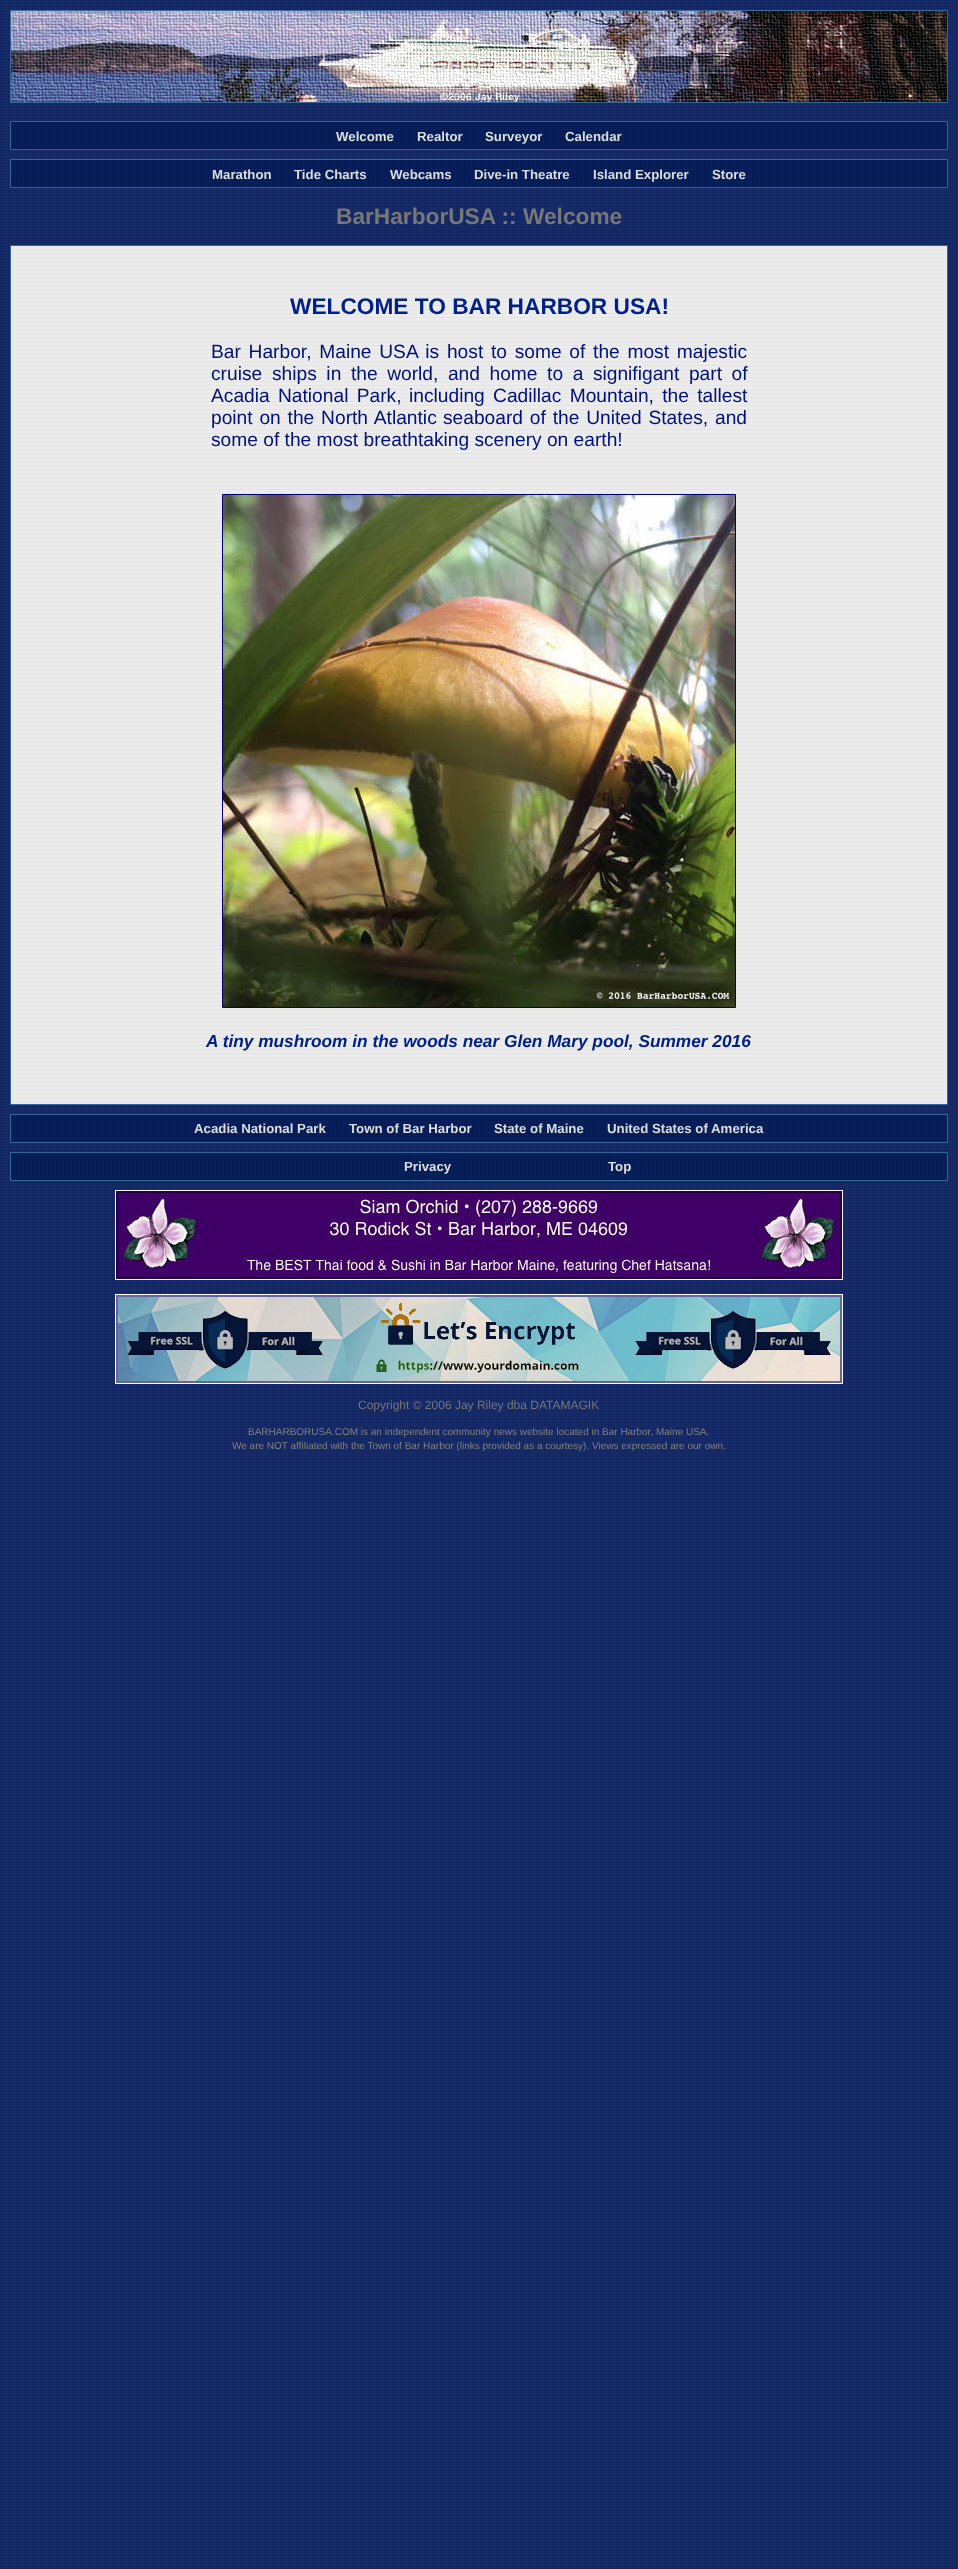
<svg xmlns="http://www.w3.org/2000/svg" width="958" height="2569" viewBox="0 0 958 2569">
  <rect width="100%" height="100%" fill="#fff"/>
  <image x="0" y="0" width="958" height="2569" href="img/1.png"/>
  <image x="11" y="11" width="936" height="91" href="img/2.png"/>
  <path d="M10.5 10.5h937v92H10.5z" fill="none" stroke="#369"/>
  <image x="11" y="122" width="936" height="27" href="img/3.png"/>
  <path d="M10.5 121.5h937v28H10.5z" fill="none" stroke="#369"/>
  <image x="11" y="160" width="936" height="27" href="img/4.png"/>
  <path d="M10.5 159.5h937v28H10.5z" fill="none" stroke="#369"/>
  <image x="11" y="246" width="936" height="858" href="img/5.png"/>
  <path d="M10.5 245.5h937v859H10.5z" fill="none" stroke="#369"/>
  <path d="M222.5 494.5h513v513H222.5z" fill="none" stroke="#000080"/>
  <image x="223" y="495" width="512" height="512" href="img/6.png"/>
  <image x="11" y="1115" width="936" height="27" href="img/7.png"/>
  <path d="M10.5 1114.5h937v28H10.5z" fill="none" stroke="#369"/>
  <image x="11" y="1153" width="936" height="27" href="img/8.png"/>
  <path d="M10.5 1152.5h937v28H10.5z" fill="none" stroke="#369"/>
  <image x="115" y="1190" width="728" height="90" href="img/9.png"/>
  <image x="115" y="1294" width="728" height="90" href="img/10.png"/>
  <g font-family="Liberation Sans" font-size="13.25" font-weight="bold" fill="#ddd">
    <text x="336" y="141">Welcome</text>
    <text x="417" y="141">Realtor</text>
    <text x="485" y="141">Surveyor</text>
    <text x="565" y="141">Calendar</text>
    <text x="212" y="179">Marathon</text>
    <text x="294" y="179">Tide Charts</text>
    <text x="390" y="179">Webcams</text>
    <text x="474" y="179">Dive-in Theatre</text>
    <text x="593" y="179">Island Explorer</text>
    <text x="712" y="179">Store</text>
  </g>
  <text x="336" y="224" font-family="Liberation Sans" font-size="22.7" font-weight="bold" fill="#777">BarHarborUSA :: Welcome</text>
  <text x="290" y="314" font-family="Liberation Sans" font-size="22.7" font-weight="bold" fill="#028">WELCOME TO BAR HARBOR USA!</text>
  <g font-family="Liberation Sans" font-size="19.2" fill="#017">
    <text x="211" y="358" word-spacing="2.4">Bar Harbor, Maine USA is host to some of the most majestic</text>
    <text x="211" y="380">cruise</text>
    <text x="272" y="380" word-spacing="4.25">ships in the world, and home to a signifigant part of</text>
    <text x="211" y="402" word-spacing="3">Acadia National Park,</text>
    <text x="409" y="402" word-spacing="3">including Cadillac Mountain, the tallest</text>
    <text x="211" y="424" word-spacing="1.5">point on the North Atlantic</text>
    <text x="443" y="424" word-spacing="1.5">seaboard of the United States, and</text>
    <text x="211" y="446">some of the most breathtaking scenery on earth!</text>
  </g>
  <text x="206" y="1047" font-family="Liberation Sans" font-size="17.3" font-weight="bold" font-style="italic" fill="#028">A tiny mushroom in the woods near Glen Mary pool, Summer 2016</text>
  <g font-family="Liberation Sans" font-size="13.25" font-weight="bold" fill="#ddd">
    <text x="194" y="1133">Acadia National Park</text>
    <text x="349" y="1133">Town of Bar Harbor</text>
    <text x="494" y="1133">State of Maine</text>
    <text x="607" y="1133">United States of America</text>
    <text x="404" y="1171">Privacy</text>
    <text x="608" y="1171">Top</text>
  </g>
  <text x="358" y="1409" font-family="Liberation Sans" font-size="12" fill="#777">Copyright © 2006 Jay Riley dba DATAMAGIK</text>
  <g font-family="Liberation Sans" font-size="10" fill="#808080">
    <text x="248" y="1435">BARHARBORUSA.COM is an independent community news website located in Bar Harbor, Maine USA.</text>
    <text x="232" y="1449">We are NOT affiliated with the Town of Bar Harbor (links provided as a courtesy). Views expressed are our own.</text>
  </g>
</svg>
